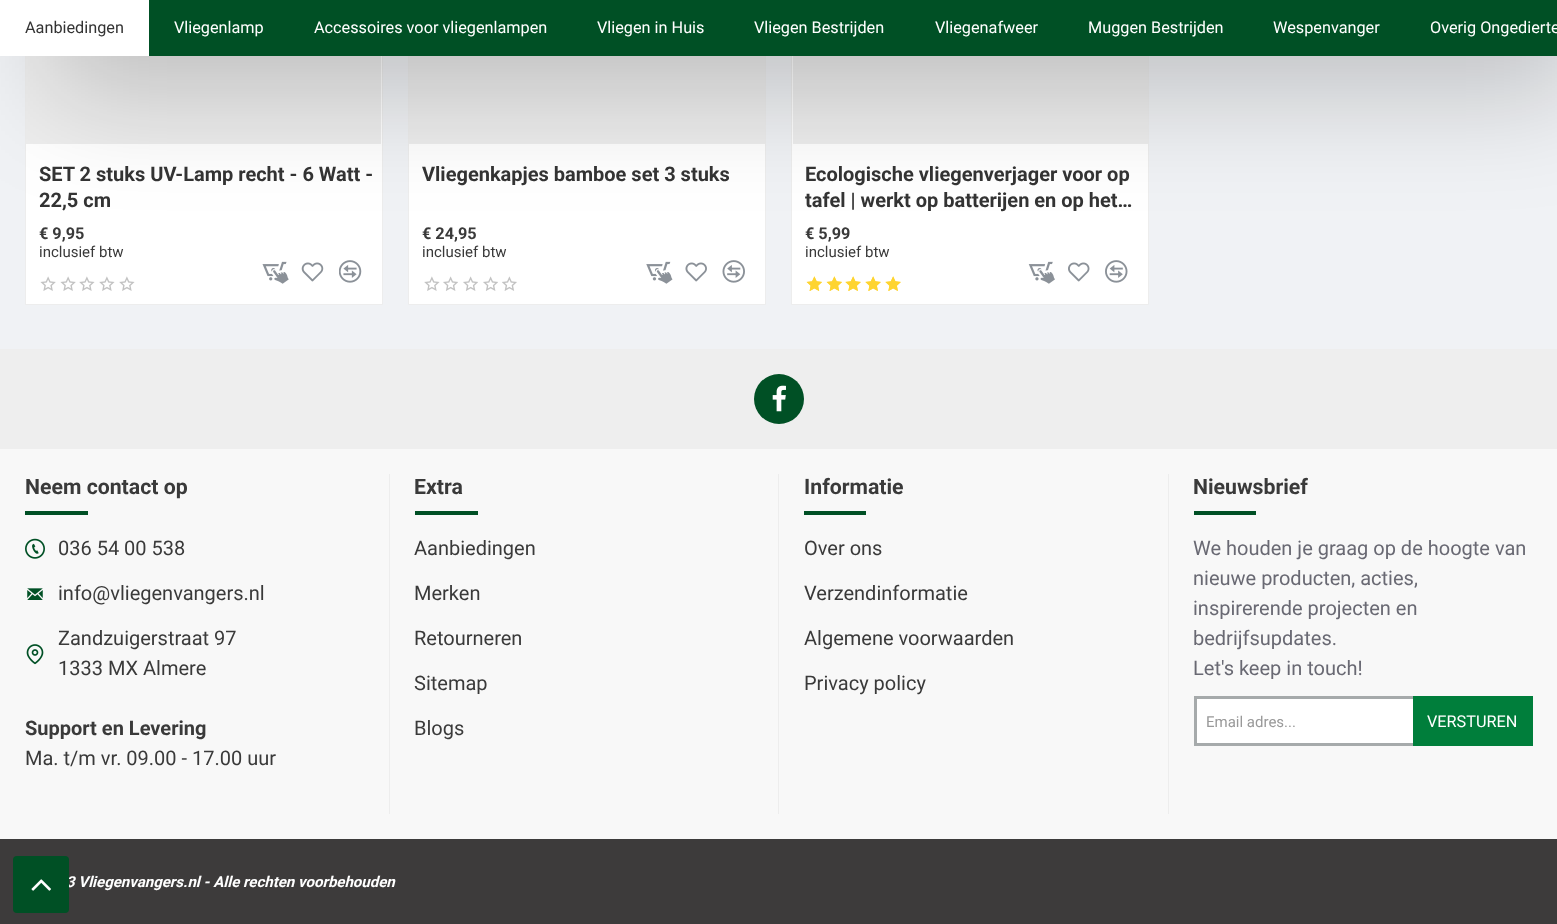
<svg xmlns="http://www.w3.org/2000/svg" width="1557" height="924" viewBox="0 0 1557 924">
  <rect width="100%" height="100%" fill="#f8f8f8"/>
  <path d="M0 56h1557v293H0z" fill="#f0f2f5"/>
  <path d="M26 56h356v248H26z" fill="#fff"/>
  <path d="M25.5 -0.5h357v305H25.5z" fill="none" stroke="#ededed"/>
  <path d="M26 56h355v88H26z" fill="#eee"/>
  <image x="262" y="261" width="27" height="23" href="img/3.png"/>
  <image x="301" y="262" width="23" height="20" href="img/4.png"/>
  <image x="339" y="260" width="23" height="23" href="img/5.png"/>
  <path d="M409 144h356v160H409z" fill="#fff"/>
  <path d="M408.5 -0.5h357v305H408.5z" fill="none" stroke="#ededed"/>
  <path d="M409 56h356v88H409z" fill="#eee"/>
  <image x="646" y="261" width="27" height="23" href="img/8.png"/>
  <image x="685" y="262" width="22" height="20" href="img/9.png"/>
  <image x="722" y="260" width="23" height="23" href="img/10.png"/>
  <path d="M792 56h356v248H792z" fill="#fff"/>
  <path d="M791.5 -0.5h357v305H791.5z" fill="none" stroke="#ededed"/>
  <path d="M793 56h355v88H793z" fill="#eee"/>
  <image x="1028" y="261" width="27" height="23" href="img/15.png"/>
  <image x="1068" y="262" width="22" height="20" href="img/16.png"/>
  <image x="1105" y="260" width="23" height="23" href="img/17.png"/>
  <path d="M50 -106h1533v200H50z" fill="#00000033" filter="blur(56px)"/>
  <path d="M149 0h1408v56H149z" fill="#005025"/>
  <path d="M0 0h149v56H0z" fill="#fff"/>
  <image x="40" y="276" width="16" height="15" href="img/1.png"/>
  <image x="60" y="276" width="16" height="15" href="img/1.png"/>
  <image x="79" y="276" width="16" height="15" href="img/2.png"/>
  <image x="99" y="276" width="16" height="15" href="img/2.png"/>
  <image x="119" y="276" width="16" height="15" href="img/2.png"/>
  <image x="424" y="276" width="16" height="15" href="img/2.png"/>
  <image x="443" y="276" width="15" height="15" href="img/6.png"/>
  <image x="463" y="276" width="15" height="15" href="img/6.png"/>
  <image x="483" y="276" width="15" height="15" href="img/6.png"/>
  <image x="502" y="276" width="15" height="15" href="img/7.png"/>
  <image x="806" y="276" width="16" height="15" href="img/11.png"/>
  <image x="806" y="276" width="16" height="15" href="img/12.png"/>
  <image x="826" y="276" width="16" height="15" href="img/11.png"/>
  <image x="826" y="276" width="16" height="15" href="img/12.png"/>
  <image x="845" y="276" width="16" height="15" href="img/13.png"/>
  <image x="845" y="276" width="16" height="15" href="img/14.png"/>
  <image x="865" y="276" width="16" height="15" href="img/13.png"/>
  <image x="865" y="276" width="16" height="15" href="img/14.png"/>
  <image x="885" y="276" width="16" height="15" href="img/13.png"/>
  <image x="885" y="276" width="16" height="15" href="img/14.png"/>
  <path d="M0 349h1557v100H0z" fill="#eee"/>
  <circle cx="779" cy="399" r="25" fill="#005025"/>
  <image x="772" y="385" width="14" height="27" href="img/18.png"/>
  <path d="M389 474h1v340H389z" fill="#ededed"/>
  <path d="M25 511h63v4H25z" fill="#005025"/>
  <image x="25" y="538" width="20" height="21" href="img/19.png"/>
  <image x="27" y="588" width="16" height="12" href="img/20.png"/>
  <image x="26" y="644" width="18" height="21" href="img/21.png"/>
  <path d="M778 474h1v340H778z" fill="#ededed"/>
  <path d="M415 511h63v4H415z" fill="#005025"/>
  <path d="M1168 474h1v340H1168z" fill="#ededed"/>
  <path d="M804 511h62v4H804z" fill="#005025"/>
  <path d="M1194 511h62v4H1194z" fill="#005025"/>
  <path d="M1197 699h216v44H1197z" fill="#fff"/>
  <path d="M1195.5 697.5h336v47H1195.5z" fill="none" stroke="#a6aaab" stroke-width="3"/>
  <path d="M1413 696h120v50H1413z" fill="#007e3b"/>
  <path d="M0 839h1557v85H0z" fill="#3d3b3b"/>
  <text x="25" y="33" font-family="Roboto" font-size="16.25" fill="#333">Aanbiedingen</text>
  <g font-family="Roboto" font-size="16.25" fill="#fff">
    <text x="174" y="33">Vliegenlamp</text>
    <text x="314" y="33">Accessoires voor vliegenlampen</text>
    <text x="597" y="33">Vliegen in Huis</text>
    <text x="754" y="33">Vliegen Bestrijden</text>
    <text x="935" y="33">Vliegenafweer</text>
    <text x="1088" y="33">Muggen Bestrijden</text>
    <text x="1273" y="33">Wespenvanger</text>
    <text x="1430" y="33">Overig Ongedierte</text>
  </g>
  <g font-family="Roboto" font-size="20" font-weight="bold" fill="#333">
    <text x="39" y="181">SET 2 stuks UV-Lamp recht - 6 Watt -</text>
    <text x="39" y="207">22,5 cm</text>
  </g>
  <text x="39" y="239" font-family="Roboto" font-size="16.25" font-weight="bold" fill="#3a3a3a">€ 9,95</text>
  <text x="39" y="257" font-family="Roboto" font-size="15" fill="#3a3a3a">inclusief btw</text>
  <text x="422" y="181" font-family="Roboto" font-size="20" font-weight="bold" fill="#333">Vliegenkapjes bamboe set 3 stuks</text>
  <text x="422" y="239" font-family="Roboto" font-size="16.25" font-weight="bold" fill="#3a3a3a">€ 24,95</text>
  <text x="422" y="257" font-family="Roboto" font-size="15" fill="#3a3a3a">inclusief btw</text>
  <g font-family="Roboto" font-size="20" font-weight="bold" fill="#333">
    <text x="805" y="181">Ecologische vliegenverjager voor op</text>
    <text x="805" y="207">tafel | werkt op batterijen en op het…</text>
  </g>
  <text x="805" y="239" font-family="Roboto" font-size="16.25" font-weight="bold" fill="#3a3a3a">€ 5,99</text>
  <text x="805" y="257" font-family="Roboto" font-size="15" fill="#3a3a3a">inclusief btw</text>
  <text x="25" y="494" font-family="Roboto" font-size="21.25" font-weight="bold" fill="#3a3a3a">Neem contact op</text>
  <g font-family="Roboto" font-size="20" fill="#3a3a3a">
    <text x="58" y="555">036 54 00 538</text>
    <text x="58" y="600">info@vliegenvangers.nl</text>
    <text x="58" y="645">Zandzuigerstraat 97</text>
    <text x="58" y="675">1333 MX Almere</text>
  </g>
  <text x="25" y="735" font-family="Roboto" font-size="20" font-weight="bold" fill="#3a3a3a">Support en Levering</text>
  <text x="25" y="765" font-family="Roboto" font-size="20" fill="#3a3a3a">Ma. t/m vr. 09.00 - 17.00 uur</text>
  <text x="414" y="494" font-family="Roboto" font-size="21.25" font-weight="bold" fill="#3a3a3a">Extra</text>
  <g font-family="Roboto" font-size="20" fill="#3a3a3a">
    <text x="414" y="555">Aanbiedingen</text>
    <text x="414" y="600">Merken</text>
    <text x="414" y="645">Retourneren</text>
    <text x="414" y="690">Sitemap</text>
    <text x="414" y="735">Blogs</text>
  </g>
  <text x="804" y="494" font-family="Roboto" font-size="21.25" font-weight="bold" fill="#3a3a3a">Informatie</text>
  <g font-family="Roboto" font-size="20" fill="#3a3a3a">
    <text x="804" y="555">Over ons</text>
    <text x="804" y="600">Verzendinformatie</text>
    <text x="804" y="645">Algemene voorwaarden</text>
    <text x="804" y="690">Privacy policy</text>
  </g>
  <text x="1193" y="494" font-family="Roboto" font-size="21.25" font-weight="bold" fill="#3a3a3a">Nieuwsbrief</text>
  <g font-family="Roboto" font-size="20" fill="#696973">
    <text x="1193" y="555">We houden je graag op de hoogte van</text>
    <text x="1193" y="585">nieuwe producten, acties,</text>
    <text x="1193" y="615">inspirerende projecten en</text>
    <text x="1193" y="645">bedrijfsupdates.</text>
    <text x="1193" y="675">Let's keep in touch!</text>
  </g>
  <text x="1206" y="727" font-family="Roboto" font-size="15" fill="#999">Email adres...</text>
  <text x="1427" y="727" font-family="Roboto" font-size="16.25" fill="#fff">VERSTUREN</text>
  <text x="66" y="887" font-family="Roboto" font-size="15" font-weight="bold" font-style="italic" fill="#fff">3 Vliegenvangers.nl - Alle rechten voorbehouden</text>
  <rect x="13" y="856" width="56" height="57" rx="4" fill="#005025"/>
  <image x="31" y="879" width="20" height="12" href="img/22.png"/>
</svg>
